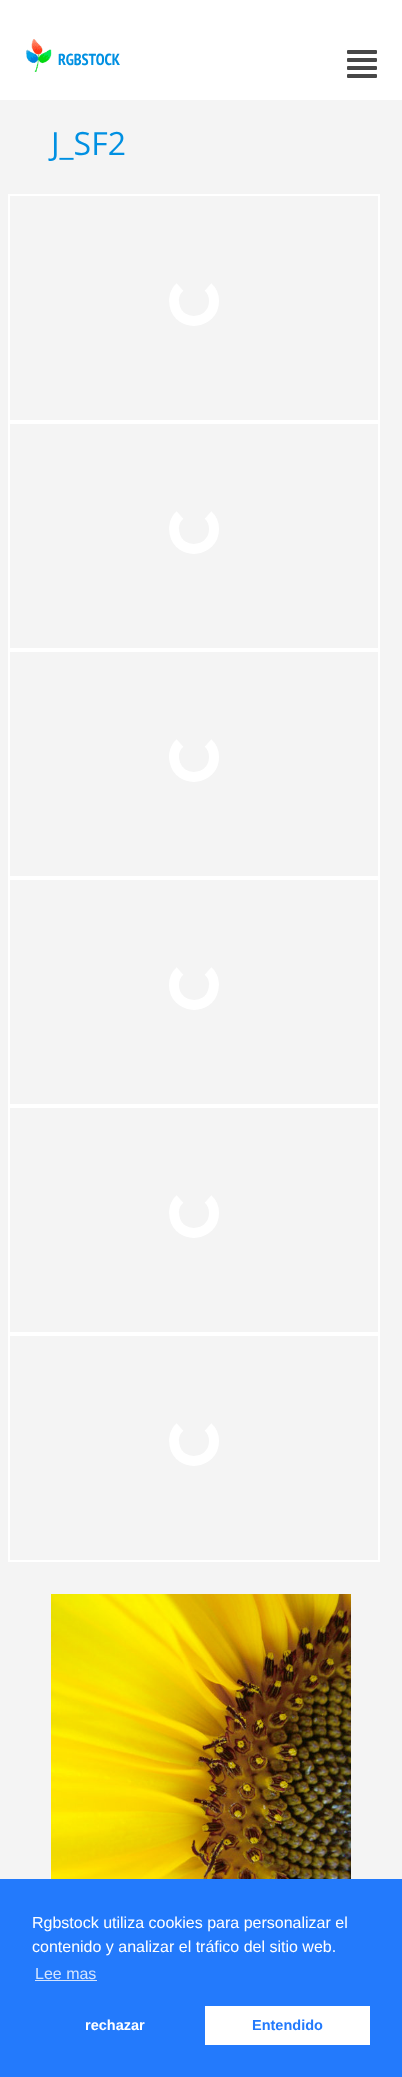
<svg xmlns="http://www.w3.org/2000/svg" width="402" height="2077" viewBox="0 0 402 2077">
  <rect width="100%" height="100%" fill="#f4f4f4"/>
  <path d="M0 0h402v100H0z" fill="#fff"/>
  <rect x="347" y="50" width="30" height="4" rx="1" fill="#474747"/>
  <rect x="347" y="58" width="30" height="4" rx="1" fill="#474747"/>
  <rect x="347" y="66" width="30" height="4" rx="1" fill="#474747"/>
  <rect x="347" y="74" width="30" height="4" rx="1" fill="#474747"/>
  <image x="26" y="39" width="26" height="33" href="img/1.png"/>
  <path d="M9 195h370v226H9z" fill="none" stroke="#fff" stroke-width="2"/>
  <path d="M208 287C212 290.5 214 295.5 214 301C214 325 179 328.5 174.5 305C173 298.5 175 291.5 180 287" fill="none" stroke="#fff" stroke-width="10"/>
  <path d="M9 423h370v226H9z" fill="none" stroke="#fff" stroke-width="2"/>
  <path d="M208 515C212 518.5 214 523.5 214 529C214 553 179 556.5 174.5 533C173 526.5 175 519.5 180 515" fill="none" stroke="#fff" stroke-width="10"/>
  <path d="M9 651h370v226H9z" fill="none" stroke="#fff" stroke-width="2"/>
  <path d="M208 743C212 746.5 214 751.5 214 757C214 781 179 784.5 174.5 761C173 754.5 175 747.5 180 743" fill="none" stroke="#fff" stroke-width="10"/>
  <path d="M9 879h370v226H9z" fill="none" stroke="#fff" stroke-width="2"/>
  <path d="M208 971C213 975.5 215 982.5 213.5 989C209 1012.5 174 1009 174 985C174 979.5 176 974.5 180 971" fill="none" stroke="#fff" stroke-width="10"/>
  <path d="M9 1107h370v226H9z" fill="none" stroke="#fff" stroke-width="2"/>
  <path d="M208 1199C212 1202.5 214 1207.5 214 1213C214 1237 179 1240.5 174.5 1217C173 1210.5 175 1203.5 180 1199" fill="none" stroke="#fff" stroke-width="10"/>
  <path d="M9 1335h370v226H9z" fill="none" stroke="#fff" stroke-width="2"/>
  <path d="M208 1427C212 1430.5 214 1435.5 214 1441C214 1465 179 1468.5 174.5 1445C173 1438.5 175 1431.5 180 1427" fill="none" stroke="#fff" stroke-width="10"/>
  <image x="51" y="1594" width="300" height="285" href="img/2.png"/>
  <path d="M0 1879h402v198H0z" fill="#237afc"/>
  <path d="M35 1980h62v1H35z" fill="#d3e4fe"/>
  <path d="M205 2006h165v39H205z" fill="#fff"/>
  <text x="58" y="65" font-family="PT Sans Narrow" font-size="16" font-weight="bold" fill="#0090e2">RGBSTOCK</text>
  <text x="51" y="155" font-family="Open Sans" font-size="32" fill="#0090e2">J_SF2</text>
  <g font-family="Liberation Sans" font-size="16" fill="#fff">
    <text x="32" y="1928">Rgbstock utiliza cookies para personalizar el</text>
    <text x="32" y="1952">contenido y analizar el tráfico del sitio web.</text>
  </g>
  <text x="35" y="1979" font-family="Liberation Sans" font-size="16" fill="#d3e4fe">Lee mas</text>
  <text x="85" y="2030" font-family="Liberation Sans" font-size="14.5" font-weight="bold" fill="#fff">rechazar</text>
  <text x="252" y="2030" font-family="Liberation Sans" font-size="14.5" font-weight="bold" fill="#237afc">Entendido</text>
</svg>
